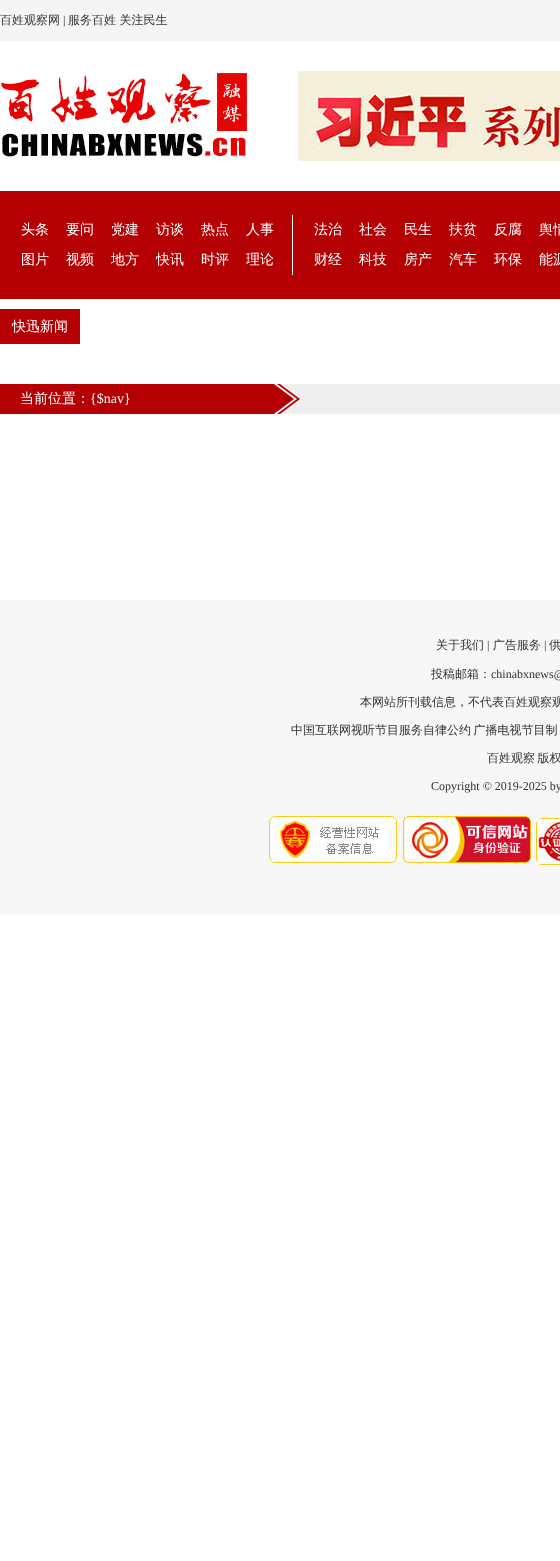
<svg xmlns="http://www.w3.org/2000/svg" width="560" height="1561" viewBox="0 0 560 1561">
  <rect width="100%" height="100%" fill="#fff"/>
  <path d="M0 0h560v40H0z" fill="#f5f5f5"/>
  <path d="M0 40h560v1H0z" fill="#f1f1f1"/>
  <image x="1" y="72" width="246" height="85" href="img/1.png"/>
  <image x="298" y="71" width="262" height="90" href="img/2.png"/>
  <path d="M0 191h560v108H0z" fill="#b40003"/>
  <path d="M292 215h1v60H292z" fill="#fff"/>
  <path d="M0 309h80v35H0z" fill="#b40003"/>
  <path d="M300 384h260v30H300z" fill="#eee"/>
  <path d="M0 384h274v30H0z" fill="#b40003"/>
  <image x="274" y="384" width="26" height="30" href="img/3.png"/>
  <path d="M0 600h560v315H0z" fill="#f7f7f7"/>
  <image x="269" y="816" width="129" height="47" href="img/4.png"/>
  <image x="401" y="815" width="132" height="48" href="img/5.png"/>
  <image x="536" y="818" width="24" height="47" href="img/6.png"/>
  <text x="0" y="24" font-family="WenQuanYi Zen Hei" font-size="12" font-weight="500" fill="#333">百姓观察网</text>
  <text x="63" y="24" font-family="Liberation Serif" font-size="12" fill="#333">|</text>
  <text x="68" y="24" font-family="WenQuanYi Zen Hei" font-size="12" font-weight="500" fill="#333">服务百姓 关注民生</text>
  <g font-family="WenQuanYi Zen Hei" font-size="14" font-weight="500" fill="#fff">
    <text x="21" y="234">头条</text>
    <text x="66" y="234">要问</text>
    <text x="111" y="234">党建</text>
    <text x="156" y="234">访谈</text>
    <text x="201" y="234">热点</text>
    <text x="246" y="234">人事</text>
    <text x="21" y="264">图片</text>
    <text x="66" y="264">视频</text>
    <text x="111" y="264">地方</text>
    <text x="156" y="264">快讯</text>
    <text x="201" y="264">时评</text>
    <text x="246" y="264">理论</text>
    <text x="314" y="234">法治</text>
    <text x="359" y="234">社会</text>
    <text x="404" y="234">民生</text>
    <text x="449" y="234">扶贫</text>
    <text x="494" y="234">反腐</text>
    <text x="539" y="234">舆情</text>
    <text x="314" y="264">财经</text>
    <text x="359" y="264">科技</text>
    <text x="404" y="264">房产</text>
    <text x="449" y="264">汽车</text>
    <text x="494" y="264">环保</text>
    <text x="539" y="264">能源</text>
    <text x="12" y="331">快迅新闻</text>
    <text x="20" y="403">当前位置：</text>
  </g>
  <text x="90" y="403" font-family="Liberation Serif" font-size="14" fill="#fff">{$nav}</text>
  <text x="436" y="649" font-family="WenQuanYi Zen Hei" font-size="12" font-weight="500" fill="#333">关于我们</text>
  <text x="487" y="649" font-family="Liberation Serif" font-size="12" fill="#333">|</text>
  <text x="493" y="649" font-family="WenQuanYi Zen Hei" font-size="12" font-weight="500" fill="#333">广告服务</text>
  <text x="544" y="649" font-family="Liberation Serif" font-size="12" fill="#333">|</text>
  <g font-family="WenQuanYi Zen Hei" font-size="12" font-weight="500" fill="#333">
    <text x="549" y="649">供</text>
    <text x="431" y="678">投稿邮箱：</text>
  </g>
  <text x="491" y="678" font-family="Liberation Serif" font-size="12" fill="#333">chinabxnews@</text>
  <g font-family="WenQuanYi Zen Hei" font-size="12" font-weight="500" fill="#333">
    <text x="360" y="706">本网站所刊载信息，不代表百姓观察观</text>
    <text x="291" y="734" word-spacing="-1">中国互联网视听节目服务自律公约 广播电视节目制</text>
    <text x="487" y="762" word-spacing="-1">百姓观察 版权</text>
  </g>
  <text x="431" y="790" font-family="Liberation Serif" font-size="12" fill="#333">Copyright © 2019-2025 by</text>
</svg>
